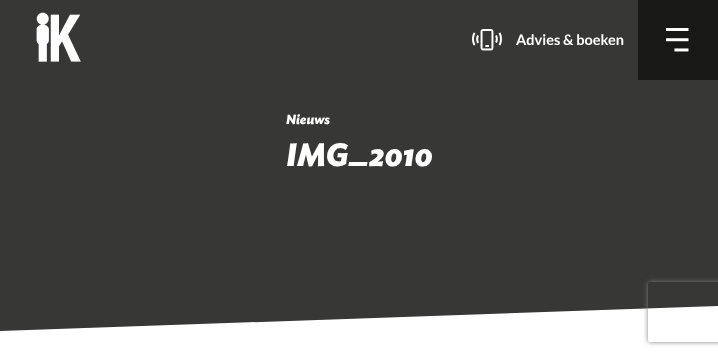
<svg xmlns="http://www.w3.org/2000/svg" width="718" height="356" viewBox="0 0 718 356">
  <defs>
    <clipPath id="clip1"><path d="M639 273H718V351H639ZM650 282H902C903 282 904 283 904 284V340C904 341 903 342 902 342H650C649 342 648 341 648 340V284C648 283 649 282 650 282Z" clip-rule="evenodd"/></clipPath>
  </defs>
  <rect width="100%" height="100%" fill="#fff"/>
  <path d="M0-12L718-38V306L0 331Z" fill="#373736"/>
  <image x="36" y="12" width="45" height="50" href="img/1.png"/>
  <image x="472" y="29" width="30" height="22" href="img/2.png"/>
  <path d="M638 0h80v80H638z" fill="#181817"/>
  <image x="666" y="28" width="23" height="24" href="img/3.png"/>
  <g clip-path="url(#clip1)">
    <rect x="648" y="282" width="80" height="60" rx="2" fill="#808080" filter="blur(2.5px)"/>
  </g>
  <text x="516" y="45" font-family="Lato" font-size="14.5" font-weight="bold" fill="#fff">Advies &amp; boeken</text>
  <text x="286" y="124" font-family="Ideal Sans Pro" font-size="13" font-weight="bold" font-style="italic" fill="#fff">Nieuws</text>
  <text x="286" y="166" font-family="Ideal Sans Pro" font-size="32" font-weight="bold" font-style="italic" fill="#fff">IMG_2010</text>
</svg>
